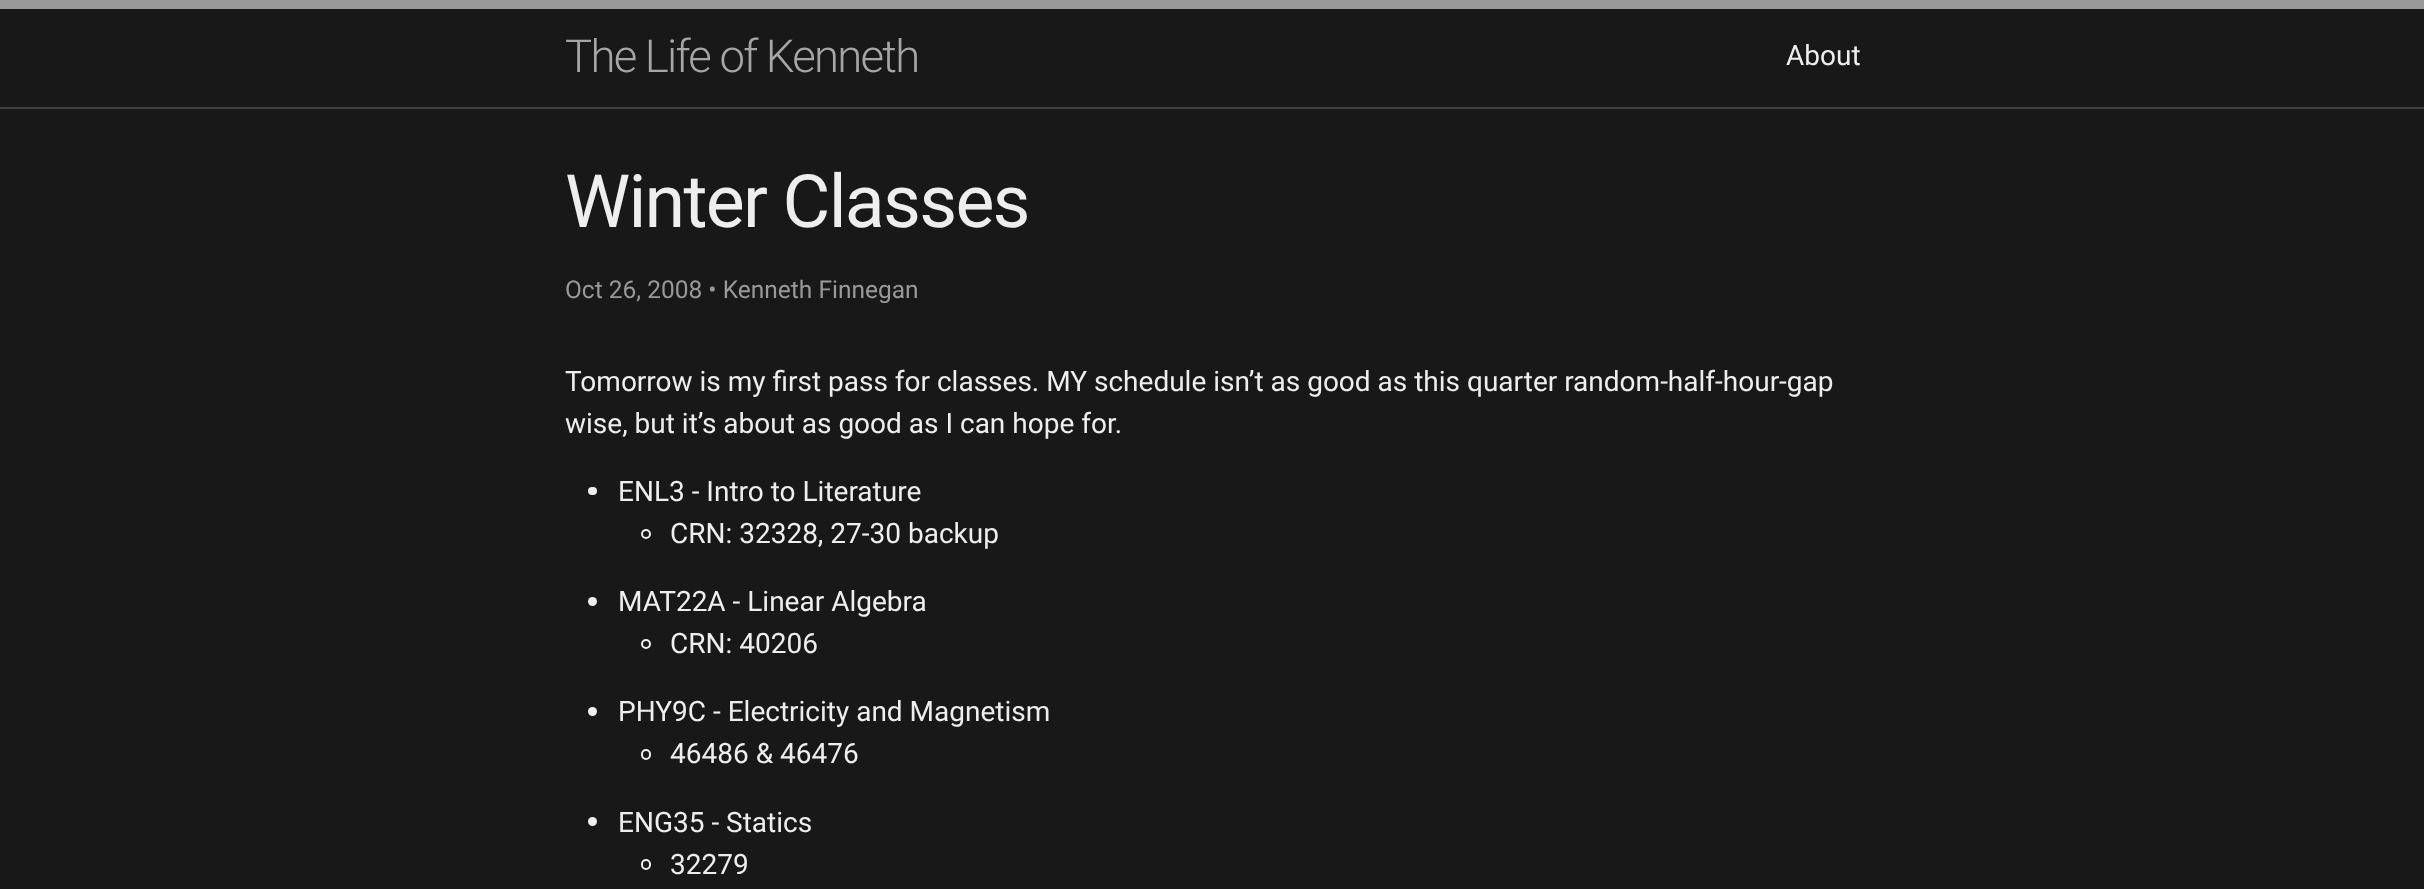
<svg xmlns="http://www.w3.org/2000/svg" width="2424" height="889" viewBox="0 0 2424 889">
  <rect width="100%" height="100%" fill="#181818"/>
  <path d="M0 0h2424v9H0z" fill="#999"/>
  <path d="M0 107h2424v2H0z" fill="#404040"/>
  <rect x="588" y="487" width="9" height="8" rx="4" fill="#eee"/>
  <circle cx="646" cy="534" r="4" fill="none" stroke="#eee" stroke-width="2"/>
  <circle cx="592.5" cy="601.5" r="4.5" fill="#eee"/>
  <circle cx="646" cy="644" r="4" fill="none" stroke="#eee" stroke-width="2"/>
  <circle cx="592.5" cy="711.5" r="4.5" fill="#eee"/>
  <rect x="642" y="750" width="8" height="9" rx="4" fill="none" stroke="#eee" stroke-width="2"/>
  <circle cx="592.5" cy="821.5" r="4.5" fill="#eee"/>
  <rect x="642" y="860" width="8" height="9" rx="4" fill="none" stroke="#eee" stroke-width="2"/>
  <text x="565" y="72" font-family="Roboto" font-size="45.5" font-weight="300" letter-spacing="-1.75" fill="#a6a6a6">The Life of Kenneth</text>
  <text x="1786" y="65" font-family="Roboto" font-size="28" fill="#eee">About</text>
  <text x="565" y="227" font-family="Roboto" font-size="73.5" letter-spacing="-1.75" fill="#eee">Winter Classes</text>
  <text x="565" y="298" font-family="Roboto" font-size="24.5" fill="#999">Oct 26, 2008 • Kenneth Finnegan</text>
  <g font-family="Roboto" font-size="28" fill="#eee">
    <text x="565" y="391">Tomorrow is my first pass for classes. MY schedule isn’t as good as this quarter random-half-hour-gap</text>
    <text x="565" y="433">wise, but it’s about as good as I can hope for.</text>
    <text x="618" y="501">ENL3 - Intro to Literature</text>
    <text x="670" y="543">CRN: 32328, 27-30 backup</text>
    <text x="618" y="611">MAT22A - Linear Algebra</text>
    <text x="670" y="653">CRN: 40206</text>
    <text x="618" y="721">PHY9C - Electricity and Magnetism</text>
    <text x="670" y="763">46486 &amp; 46476</text>
    <text x="618" y="832">ENG35 - Statics</text>
    <text x="670" y="874">32279</text>
  </g>
</svg>
